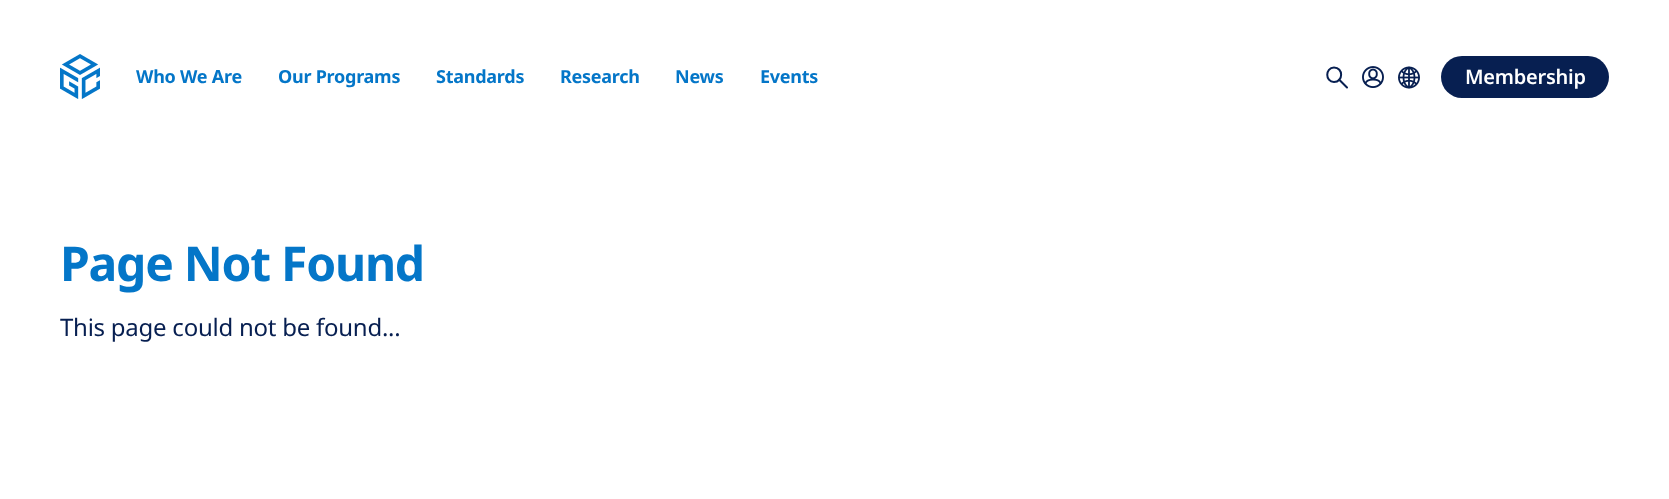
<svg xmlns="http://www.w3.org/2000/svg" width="1669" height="499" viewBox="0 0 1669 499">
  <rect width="100%" height="100%" fill="#fff"/>
  <image x="60" y="54" width="40" height="45" href="img/1.png"/>
  <path d="M1334 82C1343.5 82 1343.5 67.5 1334 67.5C1325 67.5 1325 82 1334 82ZM1347 87.5L1339 79.5" fill="none" stroke="#071f51" stroke-width="2" stroke-linecap="round" stroke-linejoin="round"/>
  <image x="1362" y="66" width="22" height="22" href="img/2.png"/>
  <image x="1398" y="66" width="22" height="23" href="img/3.png"/>
  <rect x="1441" y="56" width="168" height="42" rx="21" fill="#071f51"/>
  <g font-family="Noto Sans" font-size="18" font-weight="bold" letter-spacing="-0.25" fill="#0476c8">
    <text x="136" y="83">Who We Are</text>
    <text x="278" y="83">Our Programs</text>
    <text x="436" y="83">Standards</text>
    <text x="560" y="83">Research</text>
    <text x="675" y="83">News</text>
    <text x="760" y="83">Events</text>
  </g>
  <text x="1465" y="84" font-family="Noto Sans" font-size="20" font-weight="600" letter-spacing="-0.25" fill="#fff">Membership</text>
  <text x="60" y="281" font-family="Noto Sans" font-size="48" font-weight="bold" letter-spacing="-1.25" fill="#0476c8">Page Not Found</text>
  <text x="60" y="336" font-family="Noto Sans" font-size="24" letter-spacing="-0.25" fill="#071f51">This page could not be found...</text>
</svg>
